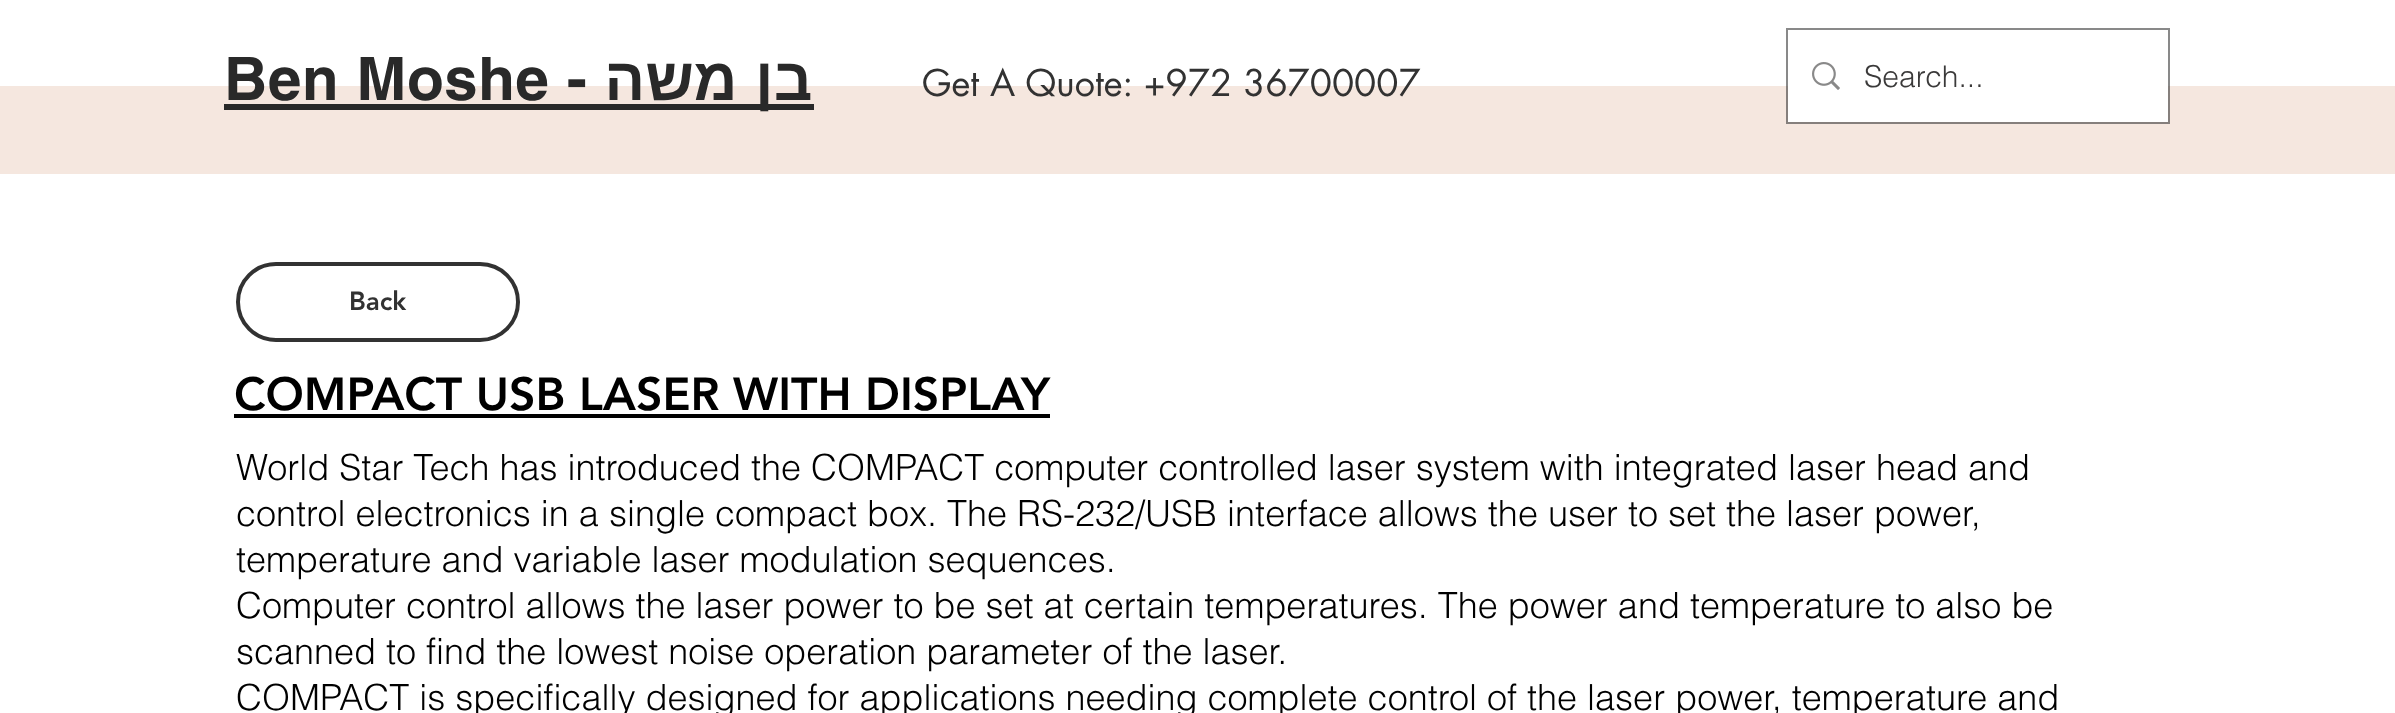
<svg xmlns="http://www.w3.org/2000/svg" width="2395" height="713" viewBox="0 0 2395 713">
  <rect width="100%" height="100%" fill="#fff"/>
  <path d="M0 86h2395v88H0z" fill="#f5e7df"/>
  <path d="M224 104h590v6H224z" fill="#292929"/>
  <path d="M1787 29h382v94H1787z" fill="none" stroke="#3b3a3a99" stroke-width="2"/>
  <path d="M1788 86h380v36H1788z" fill="#fff"/>
  <image x="1812" y="62" width="28" height="28" href="img/1.png"/>
  <rect x="238" y="264" width="280" height="76" rx="38" fill="none" stroke="#323232" stroke-width="4"/>
  <path d="M234 414h816v4H234z" fill="#000"/>
  <text x="224" y="100" font-family="helvetica" font-size="60" font-weight="bold" letter-spacing="0.6" fill="#292929">Ben Moshe -</text>
  <text x="813" y="100" font-family="Liberation Sans" font-size="60" font-weight="bold" letter-spacing="0.6" direction="rtl" fill="#292929">בן משה</text>
  <text x="922" y="96" font-family="futura" font-size="36" fill="#323232">Get A Quote: +972 36700007</text>
  <text x="1864" y="87" font-family="helvetica" font-size="30" font-weight="300" fill="#3b3a3a">Search...</text>
  <text x="349" y="310" font-family="'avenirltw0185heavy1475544'" font-size="26" font-weight="900" fill="#323232">Back</text>
  <text x="234" y="410" font-family="'avenirltw0185heavy1475544'" font-size="46" font-weight="900" fill="#000">COMPACT USB LASER WITH DISPLAY</text>
  <g font-family="helvetica" font-size="36" font-weight="300" fill="#000">
    <text x="236" y="480">World Star Tech has introduced the COMPACT computer controlled laser system with integrated laser head and</text>
    <text x="236" y="526">control electronics in a single compact box. The RS-232/USB interface allows the user to set the laser power,</text>
    <text x="236" y="572">temperature and variable laser modulation sequences.</text>
    <text x="236" y="618">Computer control allows the laser power to be set at certain temperatures. The power and temperature to also be</text>
    <text x="236" y="664">scanned to find the lowest noise operation parameter of the laser.</text>
    <text x="236" y="710">COMPACT is specifically designed for applications needing complete control of the laser power, temperature and</text>
  </g>
</svg>
